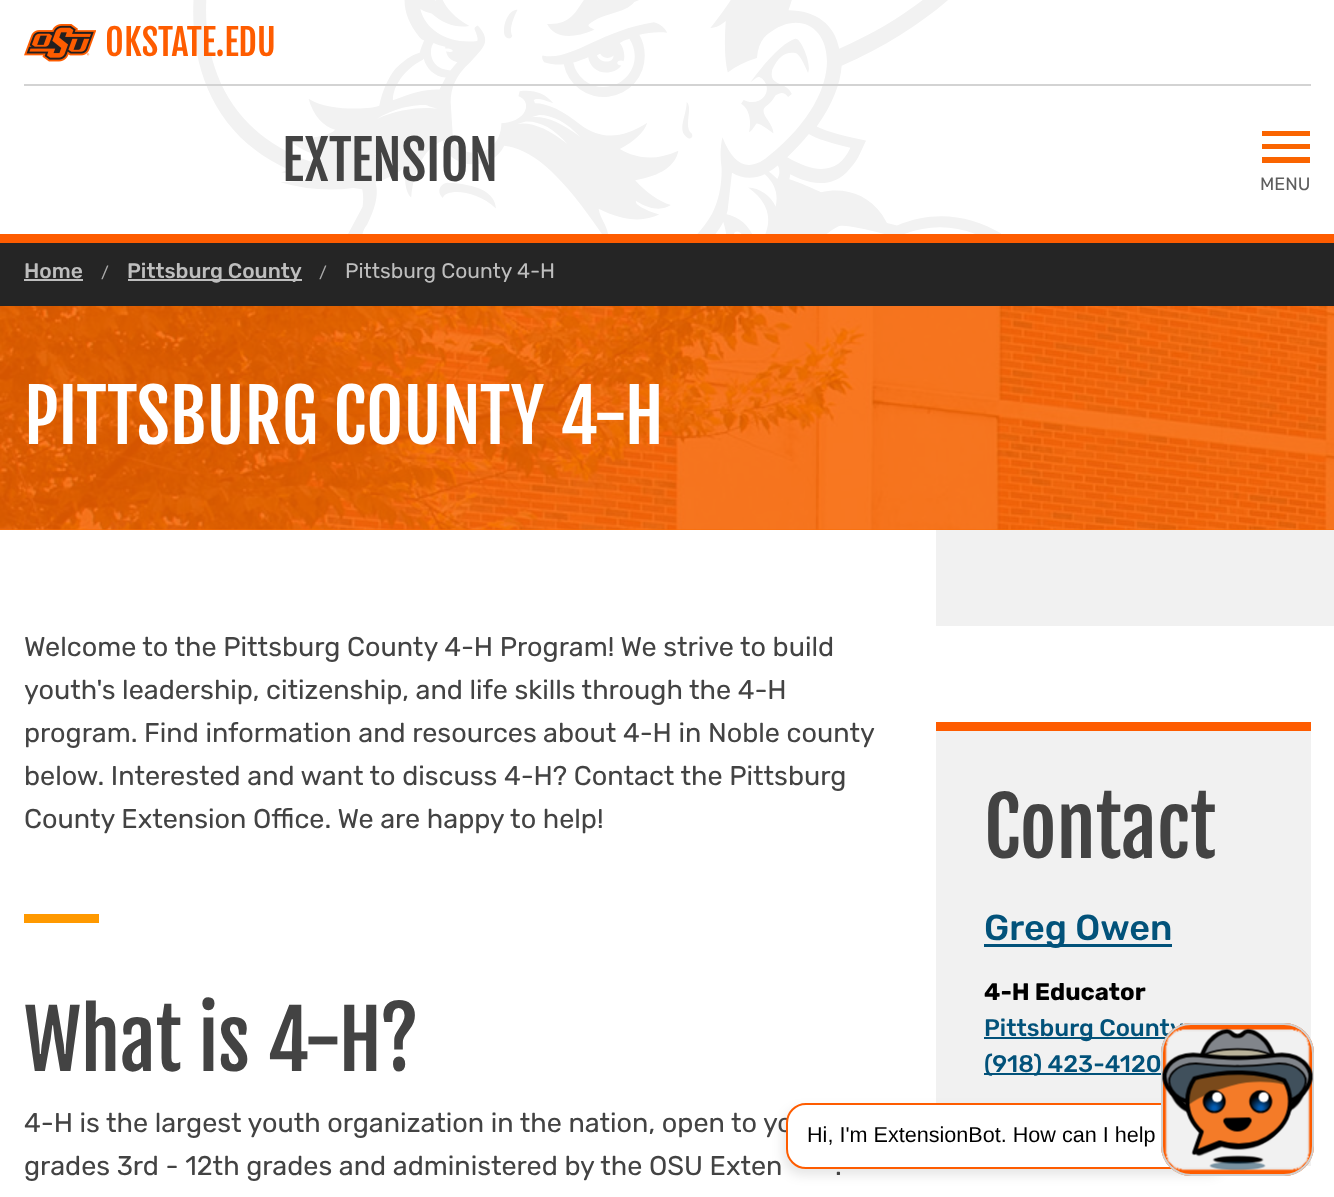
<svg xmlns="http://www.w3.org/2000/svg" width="1334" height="1197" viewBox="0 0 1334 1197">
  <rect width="100%" height="100%" fill="#fff"/>
  <path d="M0 234h1334v9H0z" fill="#fe5c00"/>
  <image x="193" y="0" width="808" height="234" href="img/1.png"/>
  <path d="M24 84h1287v2H24z" fill="#d3d3d3"/>
  <image x="24" y="24" width="72" height="38" href="img/2.png"/>
  <path d="M1262 131H1310V136H1262ZM1262 149V144H1310V149ZM1262 163V157H1310V163Z" fill="#fa6400" fill-rule="evenodd"/>
  <path d="M0 243h1334v63H0z" fill="#252525"/>
  <path d="M24 279h59v2H24z" fill="#bebebe"/>
  <path d="M128 279h174v2H128z" fill="#bebebe"/>
  <path d="M0 529h1334v1H0z" fill="#fb6c00"/>
  <image x="0" y="306" width="1334" height="224" href="img/3.png"/>
  <path d="M24 914h75v9H24z" fill="#f90"/>
  <path d="M936 530h398v96H936z" fill="#f1f1f1"/>
  <path d="M936 731h375v435H936z" fill="#f1f1f1"/>
  <path d="M936 722h375v9H936z" fill="#fe5c00"/>
  <path d="M984 944h188v3H984z" fill="#02527a"/>
  <path d="M984 1037h182v2H984z" fill="#02527a"/>
  <path d="M984 1073h177v2H984z" fill="#02527a"/>
  <rect x="783" y="1109" width="444" height="66" rx="20" fill="#0000001a" filter="blur(6px)"/>
  <text x="105" y="56" font-family="Fjalla One" font-size="36" fill="#fe5c00">OKSTATE.EDU</text>
  <text x="282" y="181" font-family="Fjalla One" font-size="54" fill="#434343">EXTENSION</text>
  <text x="1260" y="190" font-family="Rubik" font-size="18" fill="#5e5e5e">MENU</text>
  <text x="24" y="278" font-family="Rubik" font-size="21" font-weight="500" fill="#bebebe">Home</text>
  <text x="101" y="278" font-family="Rubik" font-size="16" fill="#aaa">/</text>
  <text x="127" y="278" font-family="Rubik" font-size="21" font-weight="500" fill="#bebebe">Pittsburg County</text>
  <text x="319" y="278" font-family="Rubik" font-size="16" fill="#aaa">/</text>
  <text x="345" y="278" font-family="Rubik" font-size="21" fill="#bebebe">Pittsburg County 4-H</text>
  <text x="24" y="444" font-family="Fjalla One" font-size="72" fill="#fff">PITTSBURG COUNTY 4-H</text>
  <g font-family="Rubik" font-size="27" fill="#434343">
    <text x="24" y="656">Welcome to the Pittsburg County 4-H Program! We strive to build</text>
    <text x="24" y="699">youth's leadership, citizenship, and life skills through the 4-H</text>
    <text x="24" y="742">program. Find information and resources</text>
    <text x="543" y="742">about 4-H in Noble county</text>
    <text x="24" y="785">below. Interested and want to discuss 4-H? Contact the Pittsburg</text>
    <text x="24" y="828">County Extension Office. We are happy to help!</text>
  </g>
  <text x="24" y="1071" font-family="Fjalla One" font-size="79.5" fill="#434343">What is 4-H?</text>
  <g font-family="Rubik" font-size="27" fill="#434343">
    <text x="24" y="1132">4-H is the largest youth organization in the nation, open to yo</text>
    <text x="24" y="1175">grades 3rd - 12th grades and administered by the OSU Exten</text>
    <text x="835" y="1175">.</text>
  </g>
  <text x="984" y="858" font-family="Fjalla One" font-size="79.5" fill="#434343">Contact</text>
  <text x="984" y="940" font-family="Rubik" font-size="36" font-weight="500" fill="#02527a">Greg Owen</text>
  <text x="984" y="1000" font-family="Rubik" font-size="24" font-weight="bold" fill="#000">4-H Educator</text>
  <g font-family="Rubik" font-size="24" font-weight="500" fill="#02527a">
    <text x="984" y="1036">Pittsburg County</text>
    <text x="984" y="1072">(918) 423-4120</text>
  </g>
  <rect x="787" y="1104" width="442" height="64" rx="19" fill="#fff" stroke="#fe5c00" stroke-width="2"/>
  <text x="807" y="1142" font-family="Liberation Sans" font-size="21.6" fill="#000">Hi, I'm ExtensionBot. How can I help</text>
  <rect x="1161" y="1023" width="153" height="153" rx="30" fill="#fe5c00"/>
  <image x="1165" y="1029" width="145" height="142" href="img/4.png"/>
  <rect x="1162" y="1024" width="151" height="151" rx="29" fill="none" stroke="#d0d0d0" stroke-width="2"/>
  <image x="1162" y="1028" width="151" height="143" href="img/5.png"/>
</svg>
